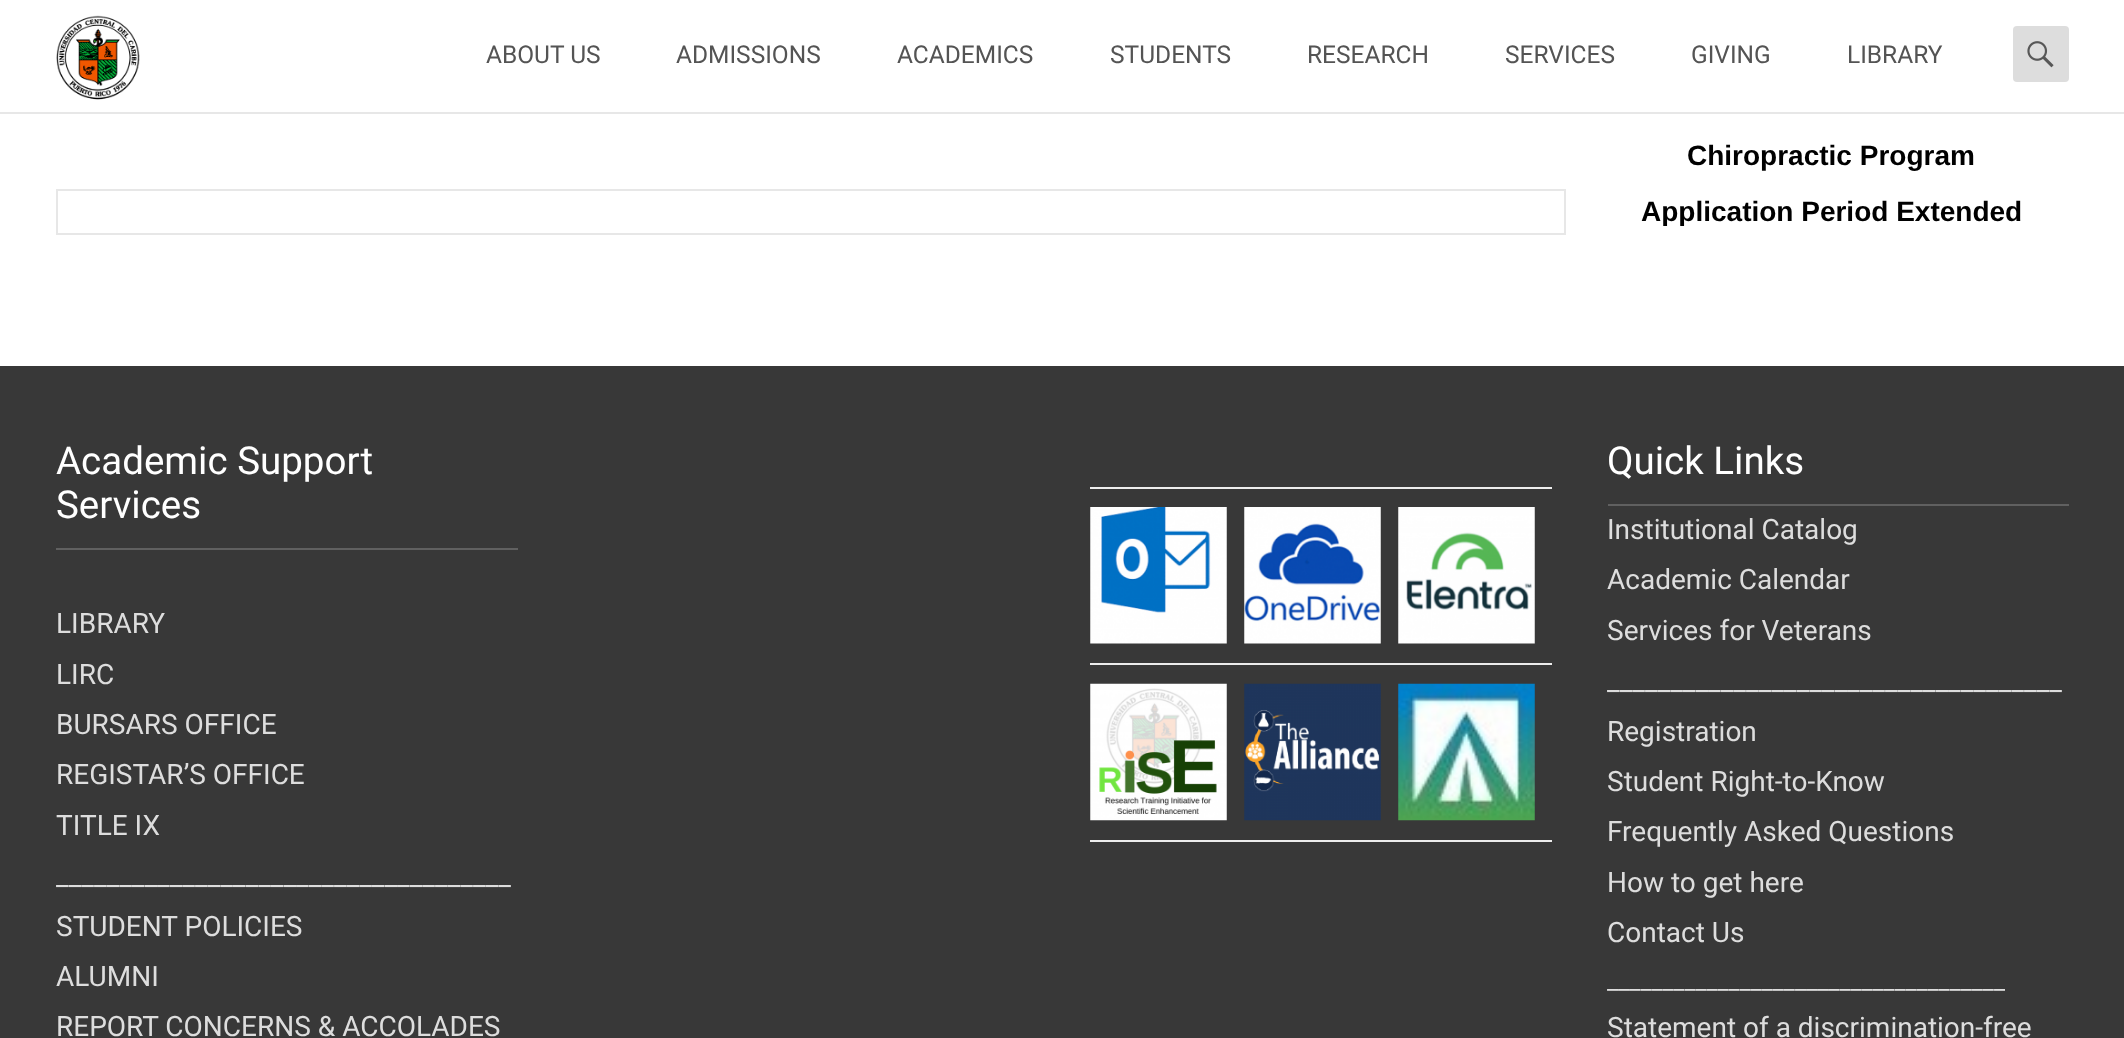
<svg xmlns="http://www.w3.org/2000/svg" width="2124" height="1038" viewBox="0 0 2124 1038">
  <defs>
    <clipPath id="clip1"><path d="M1622 54h438v172H1622z"/></clipPath>
  </defs>
  <rect width="100%" height="100%" fill="#fff"/>
  <path d="M0 112h2124v2H0z" fill="#e7e7e7"/>
  <image x="56" y="15" width="84" height="85" href="img/1.png"/>
  <rect x="2013" y="26" width="56" height="56" rx="4" fill="#ddd"/>
  <image x="2027" y="41" width="27" height="27" href="img/2.png"/>
  <path d="M57 190h1508v44H57z" fill="none" stroke="#e7e7e7" stroke-width="2"/>
  <path d="M0 366h2124v672H0z" fill="#383838"/>
  <path d="M56 548h462v2H56z" fill="#606060"/>
  <path d="M1090 840h462v2H1090z" fill="#ededed"/>
  <path d="M1090 487h462v2H1090z" fill="#ededed"/>
  <image x="1398" y="507" width="137" height="137" href="img/3.png"/>
  <image x="1090" y="507" width="137" height="137" href="img/4.png"/>
  <image x="1244" y="507" width="137" height="137" href="img/5.png"/>
  <path d="M1090 663h462v2H1090z" fill="#ededed"/>
  <image x="1398" y="683" width="137" height="138" href="img/6.png"/>
  <image x="1090" y="683" width="137" height="138" href="img/7.png"/>
  <image x="1244" y="683" width="137" height="138" href="img/8.png"/>
  <path d="M1608 504h461v2H1608z" fill="#606060"/>
  <g font-family="Roboto" font-size="24.5" fill="#545454">
    <text x="486" y="63">ABOUT US</text>
    <text x="676" y="63">ADMISSIONS</text>
    <text x="897" y="63">ACADEMICS</text>
    <text x="1110" y="63">STUDENTS</text>
    <text x="1307" y="63">RESEARCH</text>
    <text x="1505" y="63">SERVICES</text>
    <text x="1691" y="63">GIVING</text>
    <text x="1847" y="63">LIBRARY</text>
  </g>
  <text x="1687" y="165" font-family="Liberation Sans" font-size="28" font-weight="bold" fill="#000">Chiropractic Program</text>
  <g clip-path="url(#clip1)">
    <text x="1641" y="221" font-family="Liberation Sans" font-size="28" font-weight="bold" fill="#000">Application Period Extended</text>
  </g>
  <g font-family="Roboto" font-size="38.5" fill="#fff">
    <text x="56" y="474">Academic Support</text>
    <text x="56" y="518">Services</text>
  </g>
  <g font-family="Roboto" font-size="28" fill="#ddd">
    <text x="56" y="633">LIBRARY</text>
    <text x="56" y="684">LIRC</text>
    <text x="56" y="734">BURSARS OFFICE</text>
    <text x="56" y="784">REGISTAR’S OFFICE</text>
    <text x="56" y="835">TITLE IX</text>
    <text x="56" y="885">____________________________________</text>
    <text x="56" y="936">STUDENT POLICIES</text>
    <text x="56" y="986">ALUMNI</text>
    <text x="56" y="1036">REPORT CONCERNS &amp; ACCOLADES</text>
  </g>
  <text x="1607" y="474" font-family="Roboto" font-size="38.5" fill="#fff">Quick Links</text>
  <g font-family="Roboto" font-size="28" fill="#ddd">
    <text x="1607" y="539">Institutional Catalog</text>
    <text x="1607" y="589">Academic Calendar</text>
    <text x="1607" y="640">Services for Veterans</text>
    <text x="1607" y="690">____________________________________</text>
    <text x="1607" y="741">Registration</text>
    <text x="1607" y="791">Student Right-to-Know</text>
    <text x="1607" y="841">Frequently Asked Questions</text>
    <text x="1607" y="892">How to get here</text>
    <text x="1607" y="942">Contact Us</text>
  </g>
  <text x="1607" y="989" font-family="Roboto" font-size="24.5" fill="#ddd">____________________________________</text>
  <text x="1607" y="1037" font-family="Roboto" font-size="28" fill="#ddd">Statement of a discrimination-free</text>
</svg>
